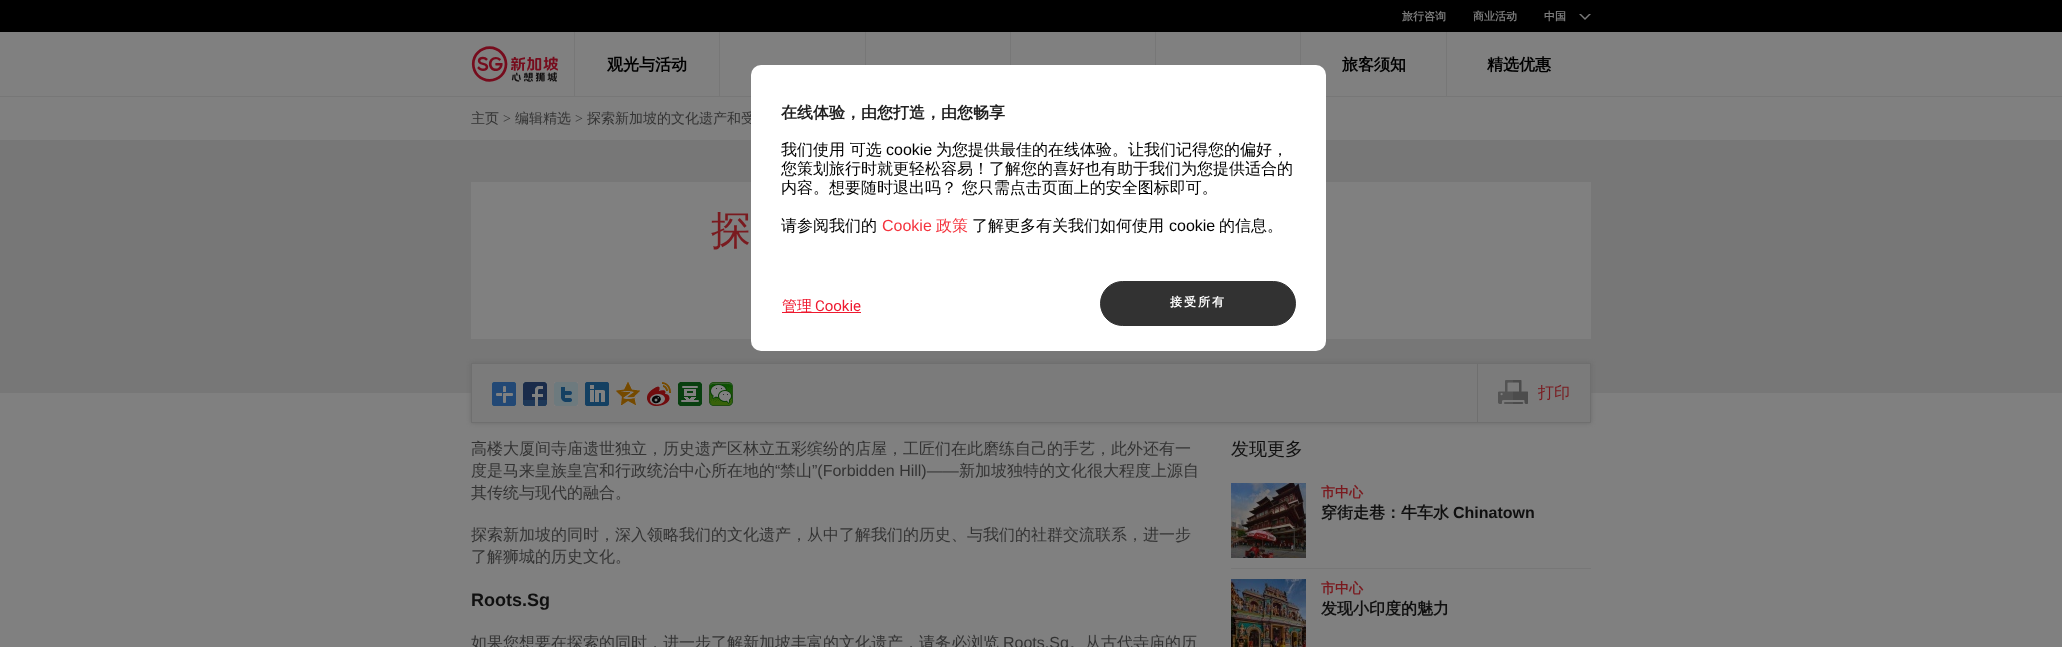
<svg xmlns="http://www.w3.org/2000/svg" width="2062" height="647" viewBox="0 0 2062 647">
  <rect width="100%" height="100%" fill="#808080"/>
  <path d="M0 96h2062v1H0z" fill="#777"/>
  <path d="M0 0h2062v32H0z" fill="#000"/>
  <path d="M1579 14H1591L1585 20Z" fill="#7b7b7b"/>
  <path d="M1581 14H1589L1585 18Z" fill="#000"/>
  <image x="471" y="46" width="87" height="36" href="img/1.png"/>
  <path d="M574 32h1v64H574z" fill="#777"/>
  <path d="M719 32h1v64H719z" fill="#777"/>
  <path d="M865 32h1v33H865z" fill="#777"/>
  <path d="M1010 32h1v33H1010z" fill="#777"/>
  <path d="M1155 32h1v33H1155z" fill="#777"/>
  <path d="M1300 32h1v33H1300z" fill="#777"/>
  <path d="M1446 32h1v64H1446z" fill="#777"/>
  <path d="M0 140h2062v253H0z" fill="#777"/>
  <path d="M471 182h1120v157H471z" fill="#808080"/>
  <path d="M471 363h1120v60H471z" fill="#6a6a6a" filter="blur(2px)"/>
  <path d="M471.5 363.5h1119v59H471.5z" fill="#7b7b7b" stroke="#6f6f6f"/>
  <image x="492" y="382" width="24" height="24" href="img/2.png"/>
  <image x="523" y="382" width="24" height="24" href="img/3.png"/>
  <image x="554" y="382" width="24" height="24" href="img/4.png"/>
  <image x="585" y="382" width="24" height="24" href="img/5.png"/>
  <image x="616" y="382" width="24" height="23" href="img/6.png"/>
  <image x="647" y="382" width="24" height="24" href="img/7.png"/>
  <image x="678" y="382" width="24" height="24" href="img/8.png"/>
  <image x="709" y="382" width="24" height="24" href="img/9.png"/>
  <path d="M1477 364h1v58H1477z" fill="#6f6f6f"/>
  <image x="1498" y="380" width="30" height="24" href="img/10.png"/>
  <path d="M1231 568h360v1H1231z" fill="#777"/>
  <image x="1231" y="483" width="75" height="75" href="img/11.png"/>
  <image x="1231" y="579" width="75" height="68" href="img/12.png"/>
  <g font-family="WenQuanYi Zen Hei" font-size="11" font-weight="bold" fill="#7b7b7b">
    <text x="1402" y="20">旅行咨询</text>
    <text x="1473" y="20">商业活动</text>
    <text x="1544" y="20">中国</text>
  </g>
  <g font-family="WenQuanYi Zen Hei" font-size="16" font-weight="bold" fill="#000">
    <text x="607" y="70">观光与活动</text>
    <text x="1342" y="70">旅客须知</text>
    <text x="1487" y="70">精选优惠</text>
  </g>
  <text x="471" y="123" font-family="WenQuanYi Zen Hei" font-size="14" font-weight="500" fill="#333">主页</text>
  <text x="503" y="123" font-family="Liberation Serif" font-size="14" fill="#333">&gt;</text>
  <text x="515" y="123" font-family="WenQuanYi Zen Hei" font-size="14" font-weight="500" fill="#333">编辑精选</text>
  <text x="575" y="123" font-family="Liberation Serif" font-size="14" fill="#333">&gt;</text>
  <text x="587" y="123" font-family="WenQuanYi Zen Hei" font-size="14" font-weight="500" fill="#333">探索新加坡的文化遗产和受</text>
  <rect x="751" y="65" width="575" height="286" rx="10" fill="#fff"/>
  <text x="781" y="118" font-family="WenQuanYi Zen Hei" font-size="16" font-weight="bold" fill="#202020">在线体验，由您打造，由您畅享</text>
  <text x="781" y="155" font-family="WenQuanYi Zen Hei" font-size="16" font-weight="500" fill="#000">我们使用 可选</text>
  <text x="886" y="155" font-family="Liberation Sans" font-size="16" fill="#000">cookie</text>
  <g font-family="WenQuanYi Zen Hei" font-size="16" font-weight="500" fill="#000">
    <text x="936" y="155">为您提供最佳的在线体验。让我们记得您的偏好，</text>
    <text x="781" y="174">您策划旅行时就更轻松容易！了解您的喜好也有助于我们为您提供适合的</text>
    <text x="781" y="193">内容。想要随时退出吗？ 您只需点击页面上的安全图标即可。</text>
    <text x="781" y="231">请参阅我们的</text>
  </g>
  <text x="882" y="231" font-family="Liberation Sans" font-size="16" fill="#f4333d">Cookie</text>
  <text x="936" y="231" font-family="WenQuanYi Zen Hei" font-size="16" font-weight="500" fill="#f4333d">政策</text>
  <text x="972" y="231" font-family="WenQuanYi Zen Hei" font-size="16" font-weight="500" fill="#000">了解更多有关我们如何使用</text>
  <text x="1169" y="231" font-family="Liberation Sans" font-size="16" fill="#000">cookie</text>
  <text x="1219" y="231" font-family="WenQuanYi Zen Hei" font-size="16" font-weight="500" fill="#000">的信息。</text>
  <path d="M782 312h79v1H782z" fill="#ee192f"/>
  <text x="782" y="311" font-family="WenQuanYi Zen Hei" font-size="15" font-weight="500" fill="#ee192f">管理</text>
  <text x="815" y="311" font-family="Roboto" font-size="15" fill="#ee192f">Cookie</text>
  <rect x="1100.5" y="281.5" width="195" height="44" rx="22" fill="#323232" stroke="#323232"/>
  <text x="1170" y="306" font-family="WenQuanYi Zen Hei" font-size="12" font-weight="bold" letter-spacing="2" fill="#fff">接受所有</text>
  <text x="711" y="244" font-family="WenQuanYi Zen Hei" font-size="40" font-weight="500" fill="#7a1a1f">探</text>
  <text x="1538" y="398" font-family="WenQuanYi Zen Hei" font-size="16" font-weight="500" fill="#7a1a1f">打印</text>
  <g font-family="WenQuanYi Zen Hei" font-size="16" font-weight="500" fill="#333">
    <text x="471" y="454">高楼大厦间寺庙遗世独立，历史遗产区林立五彩缤纷的店屋，工匠们在此磨练自己的手艺，此外还有一</text>
    <text x="471" y="476">度是马来皇族皇宫和行政统治中心所在地的</text>
  </g>
  <text x="775" y="476" font-family="Liberation Sans" font-size="16" fill="#333">“</text>
  <text x="780" y="476" font-family="WenQuanYi Zen Hei" font-size="16" font-weight="500" fill="#333">禁山</text>
  <text x="812" y="476" font-family="Liberation Sans" font-size="16" fill="#333">”(Forbidden Hill)——</text>
  <g font-family="WenQuanYi Zen Hei" font-size="16" font-weight="500" fill="#333">
    <text x="959" y="476">新加坡独特的文化很大程度上源自</text>
    <text x="471" y="498">其传统与现代的融合。</text>
    <text x="471" y="540">探索新加坡的同时，深入领略我们的文化遗产，从中了解我们的历史、与我们的社群交流联系，进一步</text>
    <text x="471" y="562">了解狮城的历史文化。</text>
  </g>
  <text x="471" y="606" font-family="Liberation Sans" font-size="18" font-weight="bold" fill="#101010">Roots.Sg</text>
  <text x="471" y="648" font-family="WenQuanYi Zen Hei" font-size="16" font-weight="500" fill="#333">如果您想要在探索的同时，进一步了解新加坡丰富的文化遗产，请务必浏览</text>
  <text x="1003" y="648" font-family="Liberation Sans" font-size="16" fill="#333">Roots.Sg</text>
  <text x="1069" y="648" font-family="WenQuanYi Zen Hei" font-size="16" font-weight="500" fill="#333">。从古代寺庙的历</text>
  <text x="1231" y="455" font-family="WenQuanYi Zen Hei" font-size="18" font-weight="500" fill="#101010">发现更多</text>
  <text x="1321" y="497" font-family="WenQuanYi Zen Hei" font-size="14" font-weight="bold" fill="#7a1a1f">市中心</text>
  <text x="1321" y="518" font-family="WenQuanYi Zen Hei" font-size="16" font-weight="bold" fill="#101010">穿街走巷：牛车水</text>
  <text x="1453" y="518" font-family="Liberation Sans" font-size="16" font-weight="bold" fill="#101010">Chinatown</text>
  <text x="1321" y="593" font-family="WenQuanYi Zen Hei" font-size="14" font-weight="bold" fill="#7a1a1f">市中心</text>
  <text x="1321" y="614" font-family="WenQuanYi Zen Hei" font-size="16" font-weight="bold" fill="#101010">发现小印度的魅力</text>
</svg>
